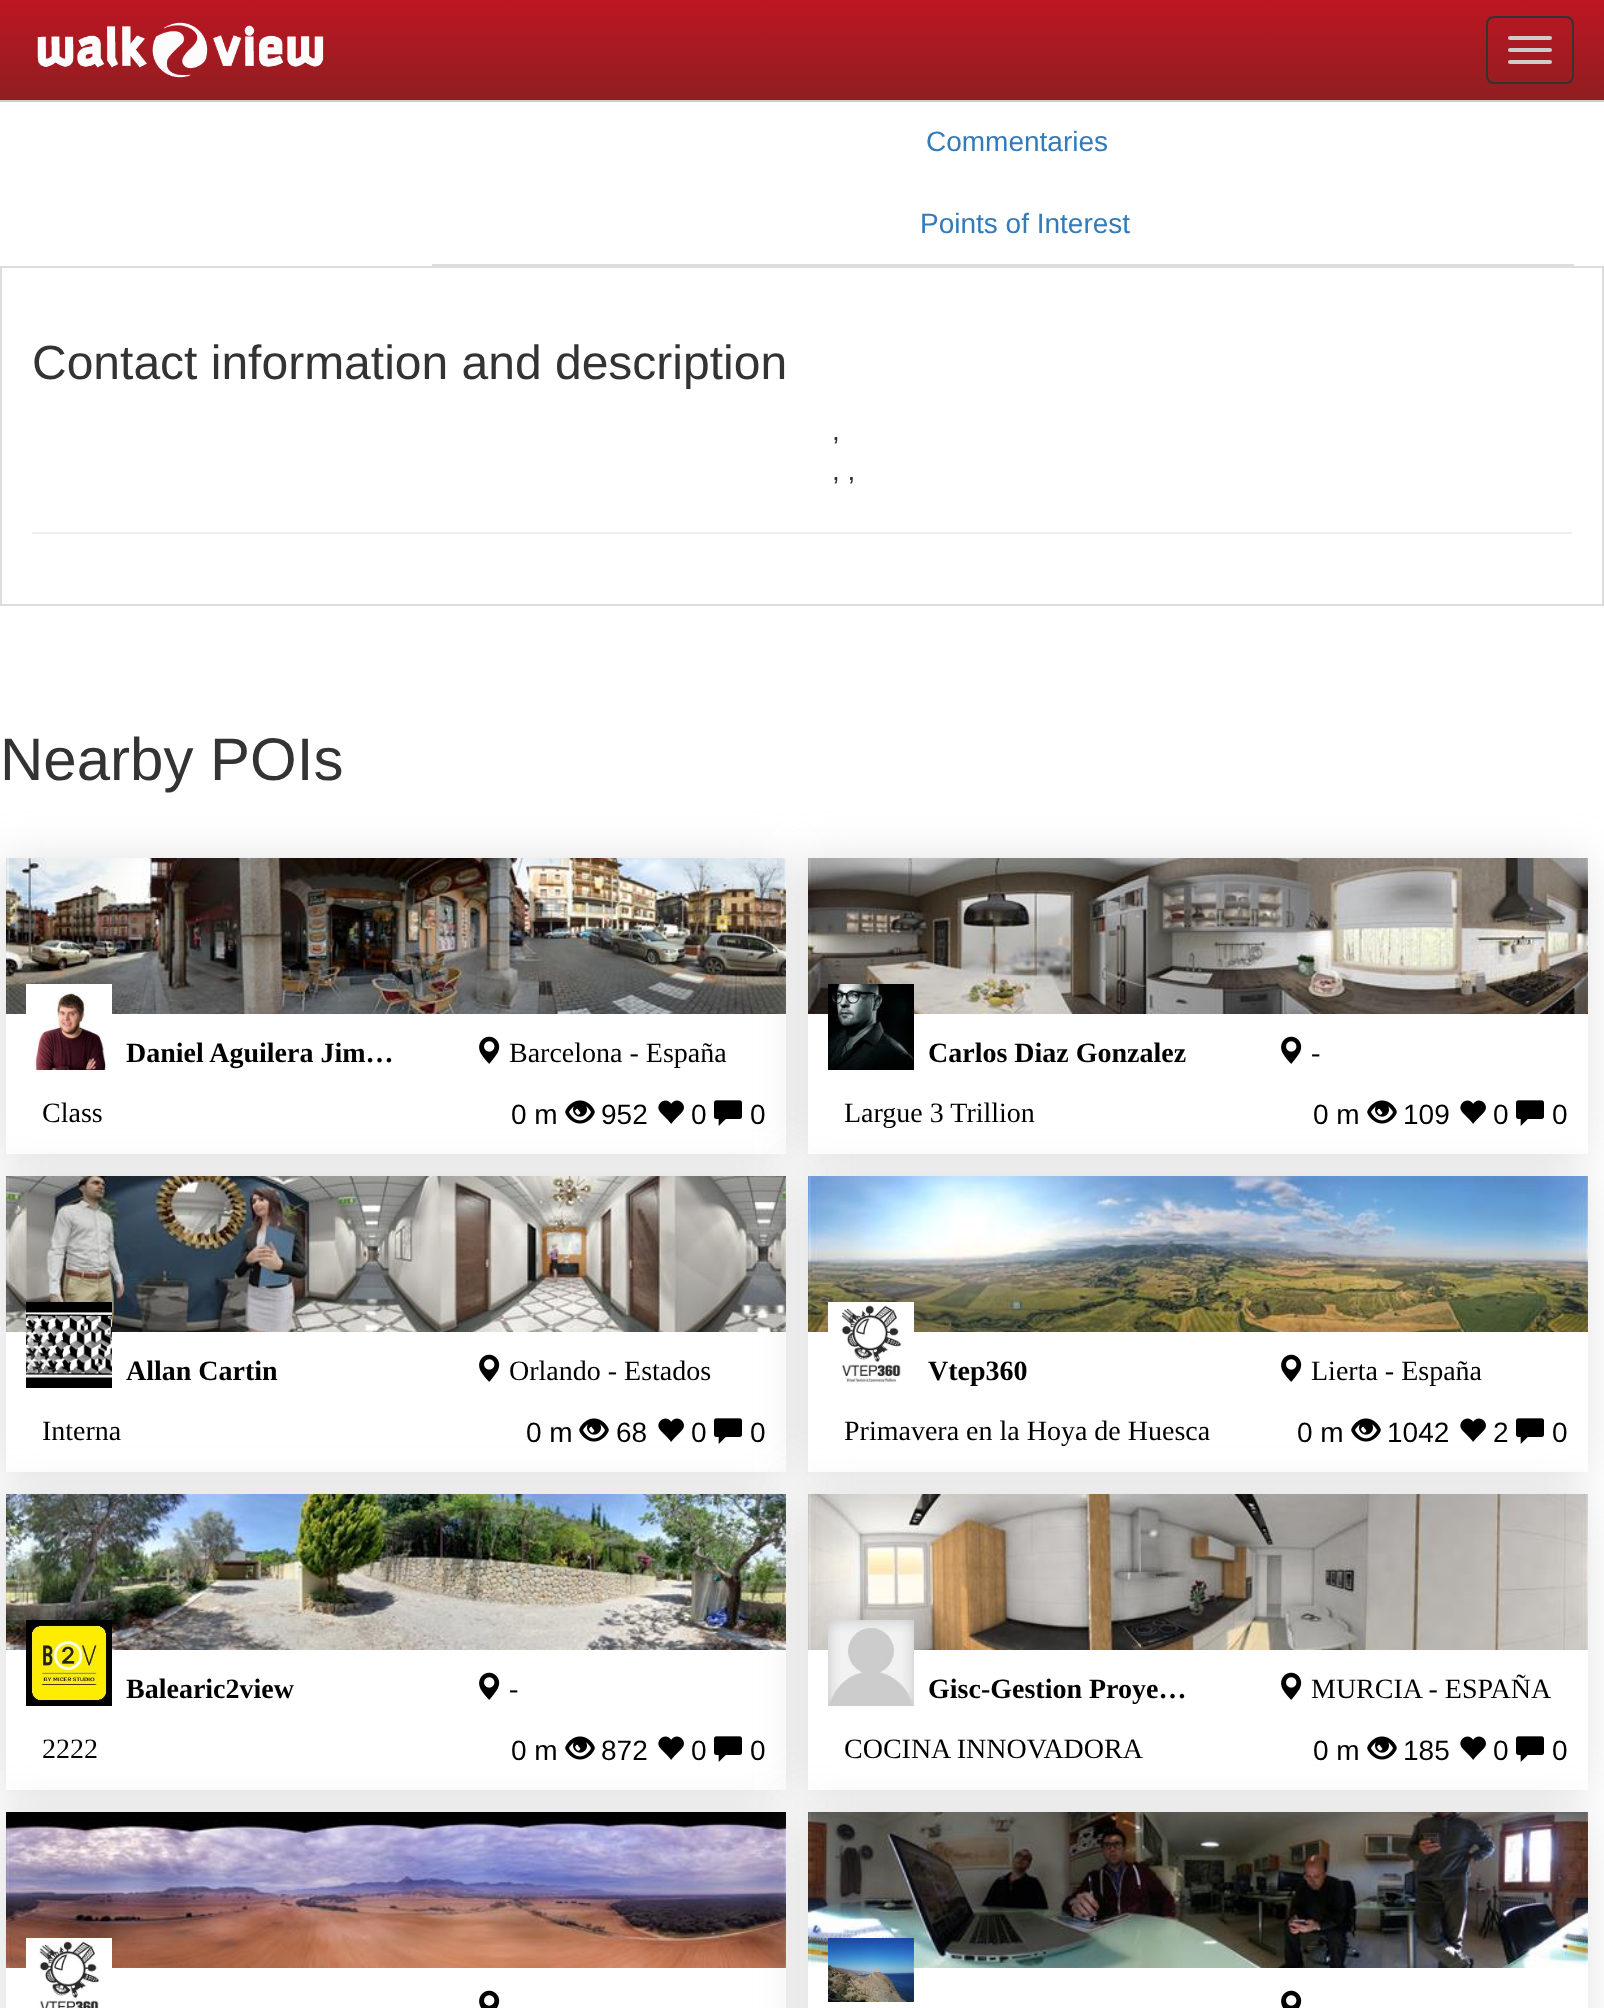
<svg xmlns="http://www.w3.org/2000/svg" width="1604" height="2008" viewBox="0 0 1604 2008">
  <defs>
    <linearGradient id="g1" gradientUnits="userSpaceOnUse" x1="802" y1="0" x2="802" y2="100"><stop offset="0" stop-color="#bd1622"/><stop offset="1" stop-color="#901e21"/></linearGradient>
    <clipPath id="clip1"><path d="M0 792H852V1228H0ZM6 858H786V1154H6Z" clip-rule="evenodd"/></clipPath>
  </defs>
  <rect width="100%" height="100%" fill="#fff"/>
  <path d="M0 100h1604v2H0z" fill="#ccc"/>
  <path d="M0 0h1604v100H0z" fill="url(#g1)"/>
  <image x="37" y="22" width="287" height="56" href="img/1.png"/>
  <rect x="1487" y="17" width="86" height="66" rx="7" fill="none" stroke="#333" stroke-width="2"/>
  <rect x="1508" y="36" width="44" height="4" rx="2" fill="#ccc"/>
  <rect x="1508" y="48" width="44" height="4" rx="2" fill="#ccc"/>
  <rect x="1508" y="60" width="44" height="4" rx="2" fill="#ccc"/>
  <path d="M432 264h1142v2H432z" fill="#ddd"/>
  <path d="M1 267h1602v338H1z" fill="none" stroke="#ddd" stroke-width="2"/>
  <path d="M32 532h1540v2H32z" fill="#eee"/>
  <g clip-path="url(#clip1)">
    <path d="M2 862h780v296H2z" fill="#b3b3b36e" filter="blur(23px)"/>
  </g>
  <image x="6" y="858" width="780" height="156" href="img/2.png"/>
  <image x="26" y="984" width="86" height="86" href="img/3.png"/>
  <image x="479" y="1036" width="21" height="28" href="img/4.png"/>
  <image x="565" y="1100" width="30" height="24" href="img/5.png"/>
  <image x="658" y="1100" width="26" height="24" href="img/6.png"/>
  <image x="714" y="1100" width="28" height="26" href="img/7.png"/>
  <path d="M804 862h780v296H804z" fill="#b3b3b36e" filter="blur(23px)"/>
  <path d="M808 1014h780v140H808z" fill="#fff"/>
  <image x="808" y="858" width="780" height="156" href="img/8.png"/>
  <image x="828" y="984" width="86" height="86" href="img/9.png"/>
  <image x="1281" y="1036" width="21" height="28" href="img/4.png"/>
  <image x="1367" y="1100" width="30" height="24" href="img/5.png"/>
  <image x="1460" y="1100" width="26" height="24" href="img/6.png"/>
  <image x="1516" y="1100" width="28" height="26" href="img/7.png"/>
  <path d="M2 1180h780v296H2z" fill="#b3b3b36e" filter="blur(23px)"/>
  <path d="M6 1332h780v140H6z" fill="#fff"/>
  <image x="6" y="1176" width="780" height="156" href="img/10.png"/>
  <image x="26" y="1302" width="86" height="86" href="img/11.png"/>
  <image x="479" y="1354" width="21" height="28" href="img/4.png"/>
  <image x="579" y="1418" width="30" height="24" href="img/5.png"/>
  <image x="658" y="1418" width="26" height="24" href="img/6.png"/>
  <image x="714" y="1418" width="28" height="26" href="img/7.png"/>
  <path d="M804 1180h780v296H804z" fill="#b3b3b36e" filter="blur(23px)"/>
  <path d="M808 1332h780v140H808z" fill="#fff"/>
  <image x="808" y="1176" width="780" height="156" href="img/12.png"/>
  <image x="828" y="1302" width="86" height="82" href="img/13.png"/>
  <image x="1281" y="1354" width="21" height="28" href="img/4.png"/>
  <image x="1351" y="1418" width="30" height="24" href="img/5.png"/>
  <image x="1460" y="1418" width="26" height="24" href="img/6.png"/>
  <image x="1516" y="1418" width="28" height="26" href="img/7.png"/>
  <path d="M2 1498h780v296H2z" fill="#b3b3b36e" filter="blur(23px)"/>
  <path d="M6 1650h780v140H6z" fill="#fff"/>
  <image x="6" y="1494" width="780" height="156" href="img/14.png"/>
  <image x="26" y="1620" width="86" height="86" href="img/15.png"/>
  <image x="479" y="1672" width="21" height="28" href="img/4.png"/>
  <image x="565" y="1736" width="30" height="24" href="img/5.png"/>
  <image x="658" y="1736" width="26" height="24" href="img/6.png"/>
  <image x="714" y="1736" width="28" height="26" href="img/7.png"/>
  <path d="M804 1498h780v296H804z" fill="#b3b3b36e" filter="blur(23px)"/>
  <path d="M808 1650h780v140H808z" fill="#fff"/>
  <image x="808" y="1494" width="780" height="156" href="img/16.png"/>
  <image x="828" y="1620" width="86" height="86" href="img/17.png"/>
  <image x="1281" y="1672" width="21" height="28" href="img/4.png"/>
  <image x="1367" y="1736" width="30" height="24" href="img/5.png"/>
  <image x="1460" y="1736" width="26" height="24" href="img/6.png"/>
  <image x="1516" y="1736" width="28" height="26" href="img/7.png"/>
  <path d="M2 1816h780v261H2z" fill="#b3b3b36e" filter="blur(23px)"/>
  <path d="M6 1968h780v40H6z" fill="#fff"/>
  <image x="6" y="1812" width="780" height="156" href="img/18.png"/>
  <image x="26" y="1938" width="86" height="70" href="img/19.png"/>
  <image x="479" y="1990" width="21" height="18" href="img/20.png"/>
  <path d="M804 1816h780v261H804z" fill="#b3b3b36e" filter="blur(23px)"/>
  <path d="M808 1968h780v40H808z" fill="#fff"/>
  <image x="808" y="1812" width="780" height="156" href="img/21.png"/>
  <image x="828" y="1938" width="86" height="64" href="img/22.png"/>
  <image x="1281" y="1990" width="21" height="18" href="img/20.png"/>
  <g font-family="Liberation Sans" font-size="28" fill="#337ab7">
    <text x="926" y="151">Commentaries</text>
    <text x="920" y="233">Points of Interest</text>
  </g>
  <text x="32" y="379" font-family="Liberation Sans" font-size="48" fill="#333">Contact information and description</text>
  <g font-family="Liberation Sans" font-size="28" fill="#333">
    <text x="832" y="440">,</text>
    <text x="832" y="480">, ,</text>
  </g>
  <text x="0" y="780" font-family="Liberation Sans" font-size="60" fill="#333">Nearby POIs</text>
  <text x="126" y="1062" font-family="Liberation Serif" font-size="28" font-weight="bold" fill="#000">Daniel Aguilera Jim…</text>
  <g font-family="Liberation Serif" font-size="28" fill="#000">
    <text x="509" y="1062">Barcelona - España</text>
    <text x="42" y="1122">Class</text>
  </g>
  <g font-family="Liberation Sans" font-size="28" fill="#000">
    <text x="511" y="1124">0 m</text>
    <text x="601" y="1124">952</text>
    <text x="691" y="1124">0</text>
    <text x="750" y="1124">0</text>
  </g>
  <text x="928" y="1062" font-family="Liberation Serif" font-size="28" font-weight="bold" fill="#000">Carlos Diaz Gonzalez</text>
  <g font-family="Liberation Serif" font-size="28" fill="#000">
    <text x="1311" y="1062">-</text>
    <text x="844" y="1122">Largue 3 Trillion</text>
  </g>
  <g font-family="Liberation Sans" font-size="28" fill="#000">
    <text x="1313" y="1124">0 m</text>
    <text x="1403" y="1124">109</text>
    <text x="1493" y="1124">0</text>
    <text x="1552" y="1124">0</text>
  </g>
  <text x="126" y="1380" font-family="Liberation Serif" font-size="28" font-weight="bold" fill="#000">Allan Cartin</text>
  <g font-family="Liberation Serif" font-size="28" fill="#000">
    <text x="509" y="1380">Orlando - Estados</text>
    <text x="42" y="1440">Interna</text>
  </g>
  <g font-family="Liberation Sans" font-size="28" fill="#000">
    <text x="526" y="1442">0 m</text>
    <text x="616" y="1442">68</text>
    <text x="691" y="1442">0</text>
    <text x="750" y="1442">0</text>
  </g>
  <text x="928" y="1380" font-family="Liberation Serif" font-size="28" font-weight="bold" fill="#000">Vtep360</text>
  <g font-family="Liberation Serif" font-size="28" fill="#000">
    <text x="1311" y="1380">Lierta - España</text>
    <text x="844" y="1440">Primavera en la Hoya de Huesca</text>
  </g>
  <g font-family="Liberation Sans" font-size="28" fill="#000">
    <text x="1297" y="1442">0 m</text>
    <text x="1387" y="1442">1042</text>
    <text x="1493" y="1442">2</text>
    <text x="1552" y="1442">0</text>
  </g>
  <text x="126" y="1698" font-family="Liberation Serif" font-size="28" font-weight="bold" fill="#000">Balearic2view</text>
  <g font-family="Liberation Serif" font-size="28" fill="#000">
    <text x="509" y="1698">-</text>
    <text x="42" y="1758">2222</text>
  </g>
  <g font-family="Liberation Sans" font-size="28" fill="#000">
    <text x="511" y="1760">0 m</text>
    <text x="601" y="1760">872</text>
    <text x="691" y="1760">0</text>
    <text x="750" y="1760">0</text>
  </g>
  <text x="928" y="1698" font-family="Liberation Serif" font-size="28" font-weight="bold" fill="#000">Gisc-Gestion Proye…</text>
  <g font-family="Liberation Serif" font-size="28" fill="#000">
    <text x="1311" y="1698">MURCIA - ESPAÑA</text>
    <text x="844" y="1758">COCINA INNOVADORA</text>
  </g>
  <g font-family="Liberation Sans" font-size="28" fill="#000">
    <text x="1313" y="1760">0 m</text>
    <text x="1403" y="1760">185</text>
    <text x="1493" y="1760">0</text>
    <text x="1552" y="1760">0</text>
  </g>
</svg>
